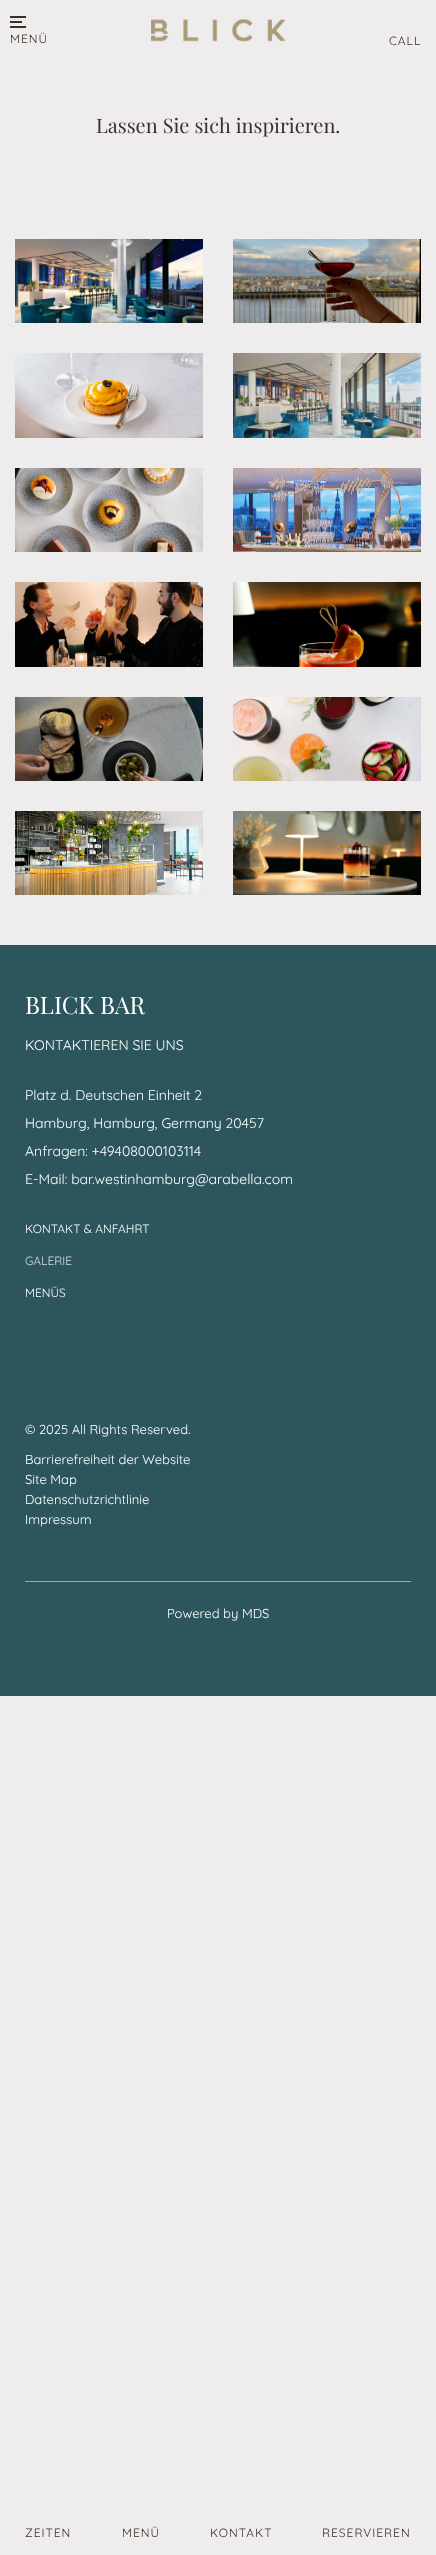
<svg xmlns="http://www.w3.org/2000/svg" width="436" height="2555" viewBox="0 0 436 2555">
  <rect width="100%" height="100%" fill="#eeecec"/>
  <path d="M10 16h16v2H10z" fill="#373128"/>
  <path d="M10 21h12v2H10z" fill="#373128"/>
  <path d="M10 26h16v2H10z" fill="#373128"/>
  <image x="151" y="19" width="134" height="23" href="img/1.png"/>
  <image x="15" y="239" width="188" height="84" href="img/2.png"/>
  <image x="233" y="239" width="188" height="84" href="img/3.png"/>
  <image x="15" y="353" width="188" height="85" href="img/4.png"/>
  <image x="233" y="353" width="188" height="85" href="img/5.png"/>
  <image x="15" y="468" width="188" height="84" href="img/6.png"/>
  <image x="233" y="468" width="188" height="84" href="img/7.png"/>
  <image x="15" y="582" width="188" height="85" href="img/8.png"/>
  <image x="233" y="582" width="188" height="85" href="img/9.png"/>
  <image x="15" y="697" width="188" height="84" href="img/10.png"/>
  <image x="233" y="697" width="188" height="84" href="img/11.png"/>
  <image x="15" y="811" width="188" height="84" href="img/12.png"/>
  <image x="233" y="811" width="188" height="84" href="img/13.png"/>
  <path d="M0 945h436v751H0z" fill="#2c565c"/>
  <path d="M25 1581h386v1H25z" fill="#96abae"/>
  <g font-family="Quicksand" font-size="12" letter-spacing="1" fill="#373128">
    <text x="10" y="43">MENÜ</text>
    <text x="389" y="45">CALL</text>
  </g>
  <text x="96" y="133" font-family="Playfair Display" font-size="20" fill="#373128">Lassen Sie sich inspirieren.</text>
  <text x="25" y="1014" font-family="Playfair Display" font-size="24" fill="#fff">BLICK BAR</text>
  <g font-family="Quicksand" font-size="14" fill="#fff">
    <text x="25" y="1050">KONTAKTIEREN SIE UNS</text>
    <text x="25" y="1100">Platz d. Deutschen Einheit 2</text>
    <text x="25" y="1128">Hamburg, Hamburg, Germany 20457</text>
    <text x="25" y="1156">Anfragen: +49408000103114</text>
    <text x="25" y="1184">E-Mail: bar.westinhamburg@arabella.com</text>
  </g>
  <text x="25" y="1233" font-family="Quicksand" font-size="12" fill="#fff">KONTAKT &amp; ANFAHRT</text>
  <text x="25" y="1265" font-family="Quicksand" font-size="12" fill="#d5ddde">GALERIE</text>
  <text x="25" y="1297" font-family="Quicksand" font-size="12" fill="#fff">MENÜS</text>
  <g font-family="Quicksand" font-size="13" fill="#fff">
    <text x="25" y="1434">© 2025 All Rights Reserved.</text>
    <text x="25" y="1464">Barrierefreiheit der Website</text>
    <text x="25" y="1484">Site Map</text>
    <text x="25" y="1504">Datenschutzrichtlinie</text>
    <text x="25" y="1524">Impressum</text>
    <text x="167" y="1618">Powered by MDS</text>
  </g>
  <g font-family="Quicksand" font-size="12" letter-spacing="1" fill="#373128">
    <text x="25" y="2537">ZEITEN</text>
    <text x="122" y="2537">MENÜ</text>
    <text x="210" y="2537">KONTAKT</text>
    <text x="322" y="2537">RESERVIEREN</text>
  </g>
</svg>
